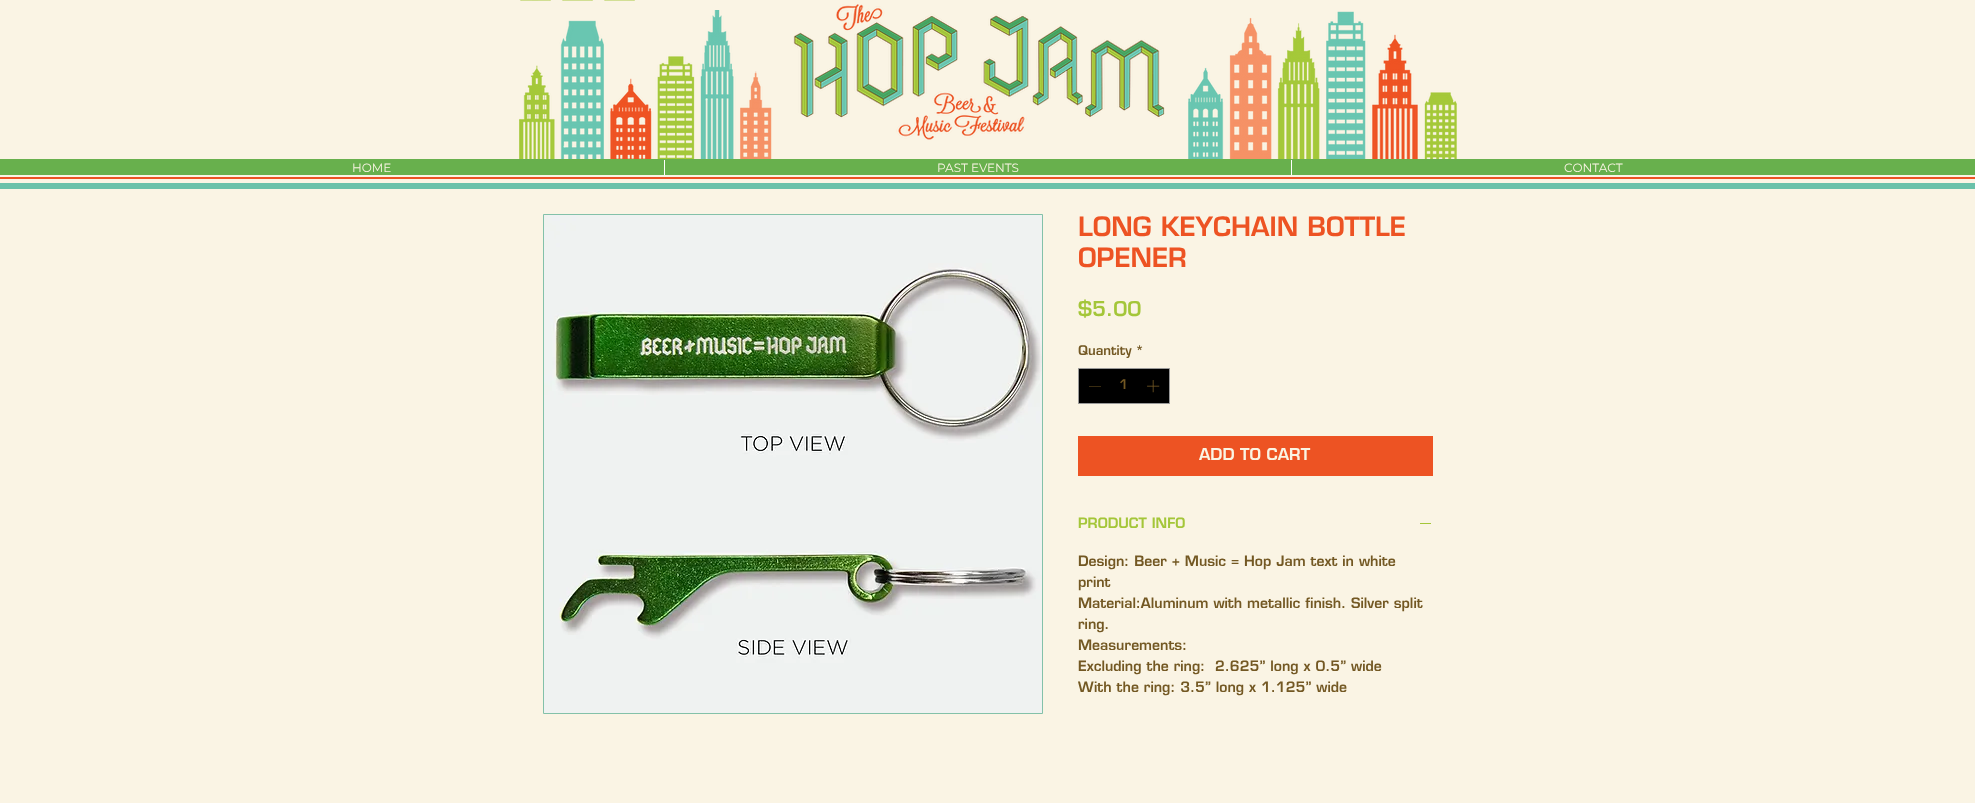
<svg xmlns="http://www.w3.org/2000/svg" width="1975" height="803" viewBox="0 0 1975 803">
  <rect width="100%" height="100%" fill="#faf4e4"/>
  <image x="520" y="0" width="31" height="1" href="img/1.png"/>
  <image x="562" y="0" width="31" height="1" href="img/2.png"/>
  <image x="604" y="0" width="31" height="1" href="img/3.png"/>
  <image x="519" y="10" width="253" height="149" href="img/4.png"/>
  <image x="793" y="4" width="372" height="136" href="img/5.png"/>
  <image x="1188" y="11" width="269" height="148" href="img/6.png"/>
  <path d="M0 159h1975v16H0z" fill="#68b04d"/>
  <path d="M664 160h1v15H664z" fill="#fff"/>
  <path d="M1291 160h1v15H1291z" fill="#fff"/>
  <path d="M0 177h1975v2H0z" fill="#ed5323"/>
  <path d="M0 183h1975v6H0z" fill="#6ac1a9"/>
  <path d="M543.5 214.5h499v499H543.5z" fill="none" stroke="#83c1a9"/>
  <image x="544" y="215" width="498" height="498" href="img/7.png"/>
  <path d="M1078.5 368.5h91v35H1078.5z" fill="#000" stroke="#999"/>
  <path d="M1101 386V386.5H1089V386Z" fill="#735823" fill-rule="evenodd"/>
  <image x="1147" y="380" width="13" height="13" href="img/8.png"/>
  <path d="M1078 436h355v40H1078z" fill="#ed5323"/>
  <path d="M1420 523h11v1H1420z" fill="#a4c639"/>
  <g font-family="Montserrat" font-size="12" fill="#faf4e4">
    <text x="352" y="172">HOME</text>
    <text x="937" y="172">PAST EVENTS</text>
    <text x="1564" y="172">CONTACT</text>
  </g>
  <g font-family="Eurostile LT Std" font-size="26" font-weight="600" fill="#ed5323">
    <text x="1078" y="236">LONG KEYCHAIN BOTTLE</text>
    <text x="1078" y="267">OPENER</text>
  </g>
  <text x="1078" y="316" font-family="Eurostile LT Std" font-size="20" font-weight="600" fill="#a4c639">$5.00</text>
  <g font-family="Eurostile LT Std" font-size="13" font-weight="600" fill="#735823">
    <text x="1078" y="355">Quantity</text>
    <text x="1135" y="355">*</text>
    <text x="1119" y="389">1</text>
  </g>
  <text x="1199" y="460" font-family="Eurostile LT Std" font-size="16" font-weight="600" fill="#faf4e4">ADD TO CART</text>
  <text x="1078" y="528" font-family="Eurostile LT Std" font-size="14" font-weight="600" fill="#a4c639">PRODUCT INFO</text>
  <g font-family="Eurostile LT Std" font-size="14" font-weight="600" fill="#735823">
    <text x="1078" y="566">Design: Beer + Music = Hop Jam text in white</text>
    <text x="1078" y="587">print</text>
    <text x="1078" y="608">Material:Aluminum with metallic finish. Silver split</text>
    <text x="1078" y="629">ring.</text>
    <text x="1078" y="650">Measurements:</text>
    <text x="1078" y="671" xml:space="preserve">Excluding the ring:  2.625” long x 0.5” wide</text>
    <text x="1078" y="692">With the ring: 3.5” long x 1.125” wide</text>
  </g>
</svg>
